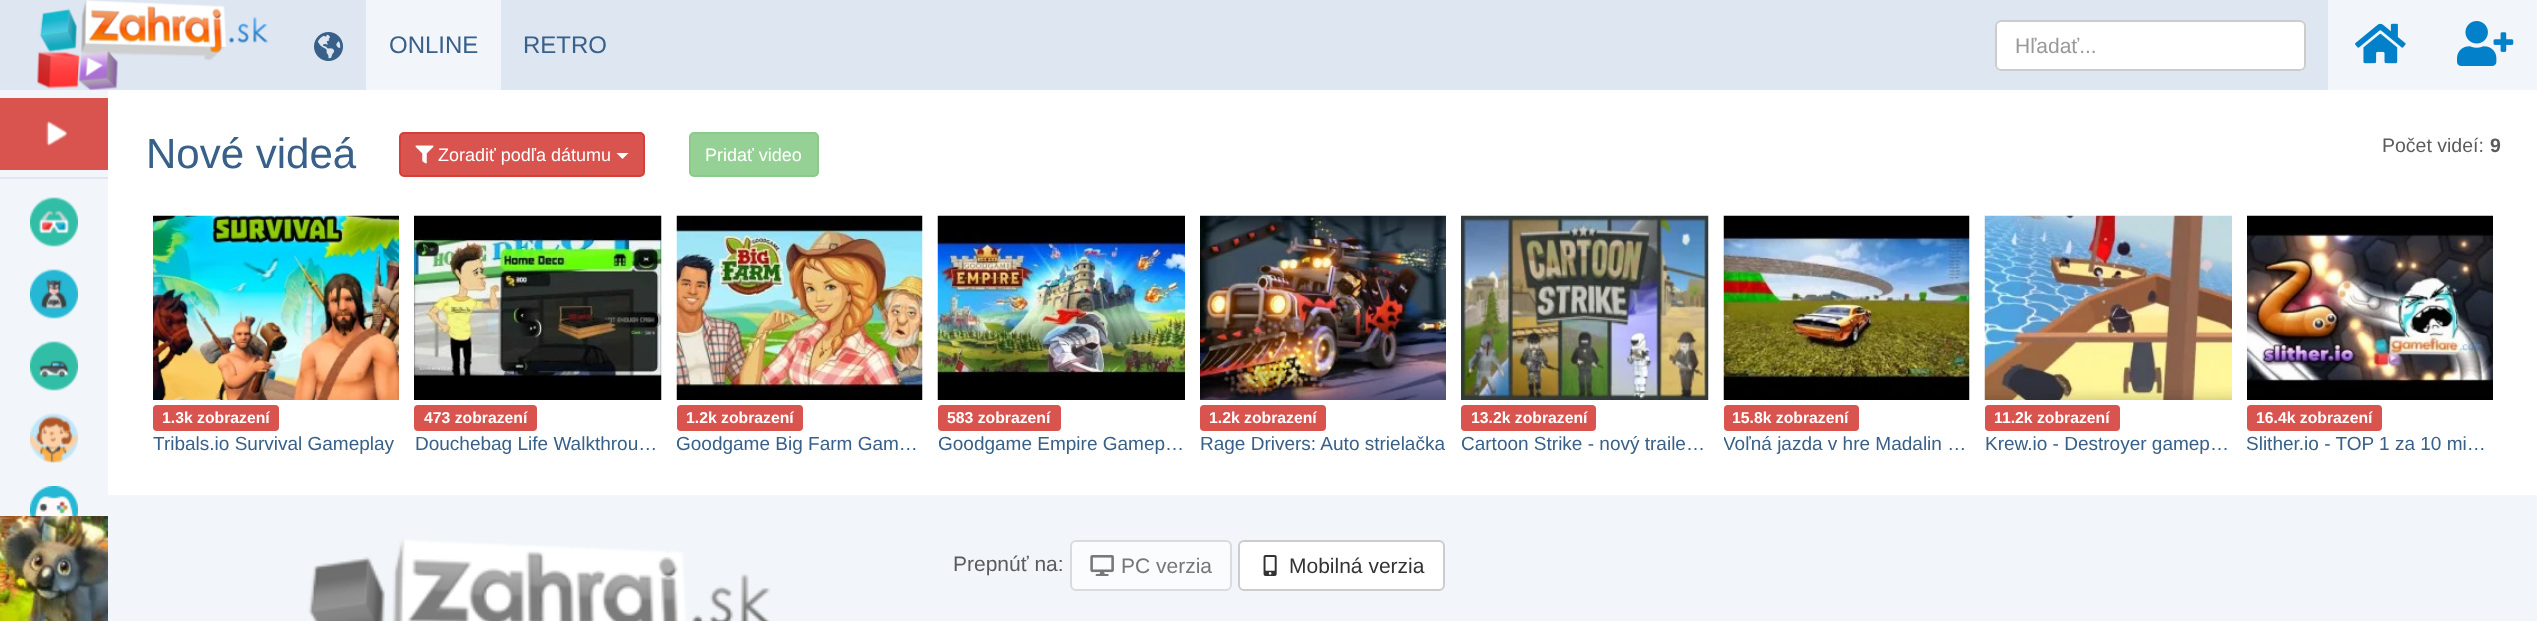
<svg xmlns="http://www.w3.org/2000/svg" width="2537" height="621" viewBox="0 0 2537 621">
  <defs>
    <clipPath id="clip1"><path d="M1724 431h246v27H1724z"/></clipPath>
  </defs>
  <rect width="100%" height="100%" fill="#fff"/>
  <path d="M0 0h2328v90H0z" fill="#dde6f1"/>
  <image x="37" y="0" width="232" height="90" href="img/1.png"/>
  <image x="314" y="32" width="29" height="29" href="img/2.png"/>
  <path d="M366 0h135v90H366z" fill="#f2f6fa"/>
  <rect x="1995" y="20" width="311" height="51" rx="6" fill="#fff"/>
  <path d="M2001 22H2300C2302 22 2304 25 2304 27C2304 24 2302 21 2299 21H2001C1999 21 1998 23 1997 24C1998 23 2000 22 2001 22Z" fill="#ececec"/>
  <rect x="1996" y="21" width="309" height="49" rx="5" fill="none" stroke="#ccc" stroke-width="2"/>
  <path d="M2328 0h209v90H2328z" fill="#f2f6fa"/>
  <image x="2355" y="23" width="51" height="41" href="img/3.png"/>
  <image x="2457" y="21" width="57" height="45" href="img/4.png"/>
  <path d="M0 90h108v426H0z" fill="#f2f6fa"/>
  <path d="M0 98h108v72H0z" fill="#d9534f"/>
  <image x="46" y="121" width="22" height="26" href="img/5.png"/>
  <path d="M0 177h108v2H0z" fill="#dde6f1"/>
  <image x="30" y="197" width="48" height="50" href="img/6.png"/>
  <image x="30" y="269" width="48" height="50" href="img/7.png"/>
  <image x="30" y="341" width="48" height="50" href="img/8.png"/>
  <image x="30" y="413" width="48" height="50" href="img/9.png"/>
  <image x="30" y="486" width="48" height="30" href="img/10.png"/>
  <image x="0" y="516" width="108" height="105" href="img/11.png"/>
  <rect x="400" y="133" width="244" height="43" rx="4" fill="#d9534f" stroke="#d43f3a" stroke-width="2"/>
  <image x="415" y="145" width="19" height="19" href="img/12.png"/>
  <path d="M616.5 153H628.5L622.5 159Z" fill="#fff"/>
  <rect x="690" y="133" width="128" height="43" rx="4" fill="#95d195" stroke="#8bca8b" stroke-width="2"/>
  <image x="153" y="215" width="246" height="185" href="img/13.png"/>
  <rect x="153" y="405" width="126" height="26" rx="4" fill="#d9534f"/>
  <image x="414" y="215" width="248" height="185" href="img/14.png"/>
  <rect x="414" y="405" width="123" height="26" rx="4" fill="#d9534f"/>
  <image x="676" y="215" width="247" height="185" href="img/15.png"/>
  <rect x="677" y="405" width="126" height="26" rx="4" fill="#d9534f"/>
  <image x="937" y="215" width="248" height="185" href="img/16.png"/>
  <rect x="938" y="405" width="123" height="26" rx="4" fill="#d9534f"/>
  <image x="1200" y="215" width="246" height="185" href="img/17.png"/>
  <rect x="1200" y="405" width="126" height="26" rx="4" fill="#d9534f"/>
  <image x="1461" y="215" width="248" height="185" href="img/18.png"/>
  <rect x="1461" y="405" width="135" height="26" rx="4" fill="#d9534f"/>
  <image x="1723" y="215" width="247" height="185" href="img/19.png"/>
  <rect x="1724" y="405" width="135" height="26" rx="4" fill="#d9534f"/>
  <image x="1984" y="215" width="248" height="185" href="img/20.png"/>
  <rect x="1985" y="405" width="135" height="26" rx="4" fill="#d9534f"/>
  <image x="2247" y="215" width="246" height="185" href="img/21.png"/>
  <rect x="2247" y="405" width="135" height="26" rx="4" fill="#d9534f"/>
  <path d="M108 495h2429v126H108z" fill="#f2f6fa"/>
  <image x="308" y="539" width="463" height="82" href="img/22.png"/>
  <rect x="1071" y="541" width="160" height="49" rx="5" fill="#fafcfd" stroke="#d9dbdc" stroke-width="2"/>
  <image x="1090" y="555" width="24" height="21" href="img/23.png"/>
  <rect x="1239" y="541" width="205" height="49" rx="5" fill="#fff" stroke="#ccc" stroke-width="2"/>
  <image x="1263" y="555" width="14" height="21" href="img/24.png"/>
  <g font-family="Liberation Sans" font-size="24" fill="#386088">
    <text x="389" y="53">ONLINE</text>
    <text x="523" y="53">RETRO</text>
  </g>
  <text x="2015" y="53" font-family="Liberation Sans" font-size="21" fill="#999">Hľadať...</text>
  <text x="146" y="168" font-family="Liberation Sans" font-size="42" fill="#386088">Nové videá</text>
  <text x="2382" y="152" font-family="Liberation Sans" font-size="19.5" fill="#5b5b5b">Počet videí:</text>
  <text x="2490" y="152" font-family="Liberation Sans" font-size="19.5" font-weight="bold" fill="#5b5b5b">9</text>
  <g font-family="Liberation Sans" font-size="18" fill="#fff">
    <text x="438" y="161">Zoradiť podľa dátumu</text>
    <text x="705" y="161">Pridať video</text>
  </g>
  <text x="162" y="423" font-family="Liberation Sans" font-size="15.75" font-weight="bold" fill="#fff">1.3k zobrazení</text>
  <text x="153" y="450" font-family="Liberation Sans" font-size="19" fill="#386088">Tribals.io Survival Gameplay</text>
  <text x="424" y="423" font-family="Liberation Sans" font-size="15.75" font-weight="bold" fill="#fff">473 zobrazení</text>
  <text x="415" y="450" font-family="Liberation Sans" font-size="19" fill="#386088">Douchebag Life Walkthrou…</text>
  <text x="686" y="423" font-family="Liberation Sans" font-size="15.75" font-weight="bold" fill="#fff">1.2k zobrazení</text>
  <text x="676" y="450" font-family="Liberation Sans" font-size="19" fill="#386088">Goodgame Big Farm Gam…</text>
  <text x="947" y="423" font-family="Liberation Sans" font-size="15.75" font-weight="bold" fill="#fff">583 zobrazení</text>
  <text x="938" y="450" font-family="Liberation Sans" font-size="19" fill="#386088">Goodgame Empire Gamep…</text>
  <text x="1209" y="423" font-family="Liberation Sans" font-size="15.75" font-weight="bold" fill="#fff">1.2k zobrazení</text>
  <text x="1200" y="450" font-family="Liberation Sans" font-size="19" fill="#386088">Rage Drivers: Auto strielačka</text>
  <text x="1471" y="423" font-family="Liberation Sans" font-size="15.75" font-weight="bold" fill="#fff">13.2k zobrazení</text>
  <text x="1461" y="450" font-family="Liberation Sans" font-size="19" fill="#386088">Cartoon Strike - nový traile…</text>
  <text x="1732" y="423" font-family="Liberation Sans" font-size="15.75" font-weight="bold" fill="#fff">15.8k zobrazení</text>
  <g clip-path="url(#clip1)">
    <text x="1723" y="450" font-family="Liberation Sans" font-size="19" fill="#386088">Voľná jazda v hre Madalin …</text>
  </g>
  <text x="1994" y="423" font-family="Liberation Sans" font-size="15.75" font-weight="bold" fill="#fff">11.2k zobrazení</text>
  <text x="1985" y="450" font-family="Liberation Sans" font-size="19" fill="#386088">Krew.io - Destroyer gamep…</text>
  <text x="2256" y="423" font-family="Liberation Sans" font-size="15.75" font-weight="bold" fill="#fff">16.4k zobrazení</text>
  <text x="2246" y="450" font-family="Liberation Sans" font-size="19" fill="#386088">Slither.io - TOP 1 za 10 mi…</text>
  <text x="953" y="571" font-family="Liberation Sans" font-size="21" fill="#5b5b5b">Prepnúť na:</text>
  <text x="1121" y="573" font-family="Liberation Sans" font-size="21" fill="#767779">PC verzia</text>
  <text x="1289" y="573" font-family="Liberation Sans" font-size="21" fill="#333">Mobilná verzia</text>
</svg>
